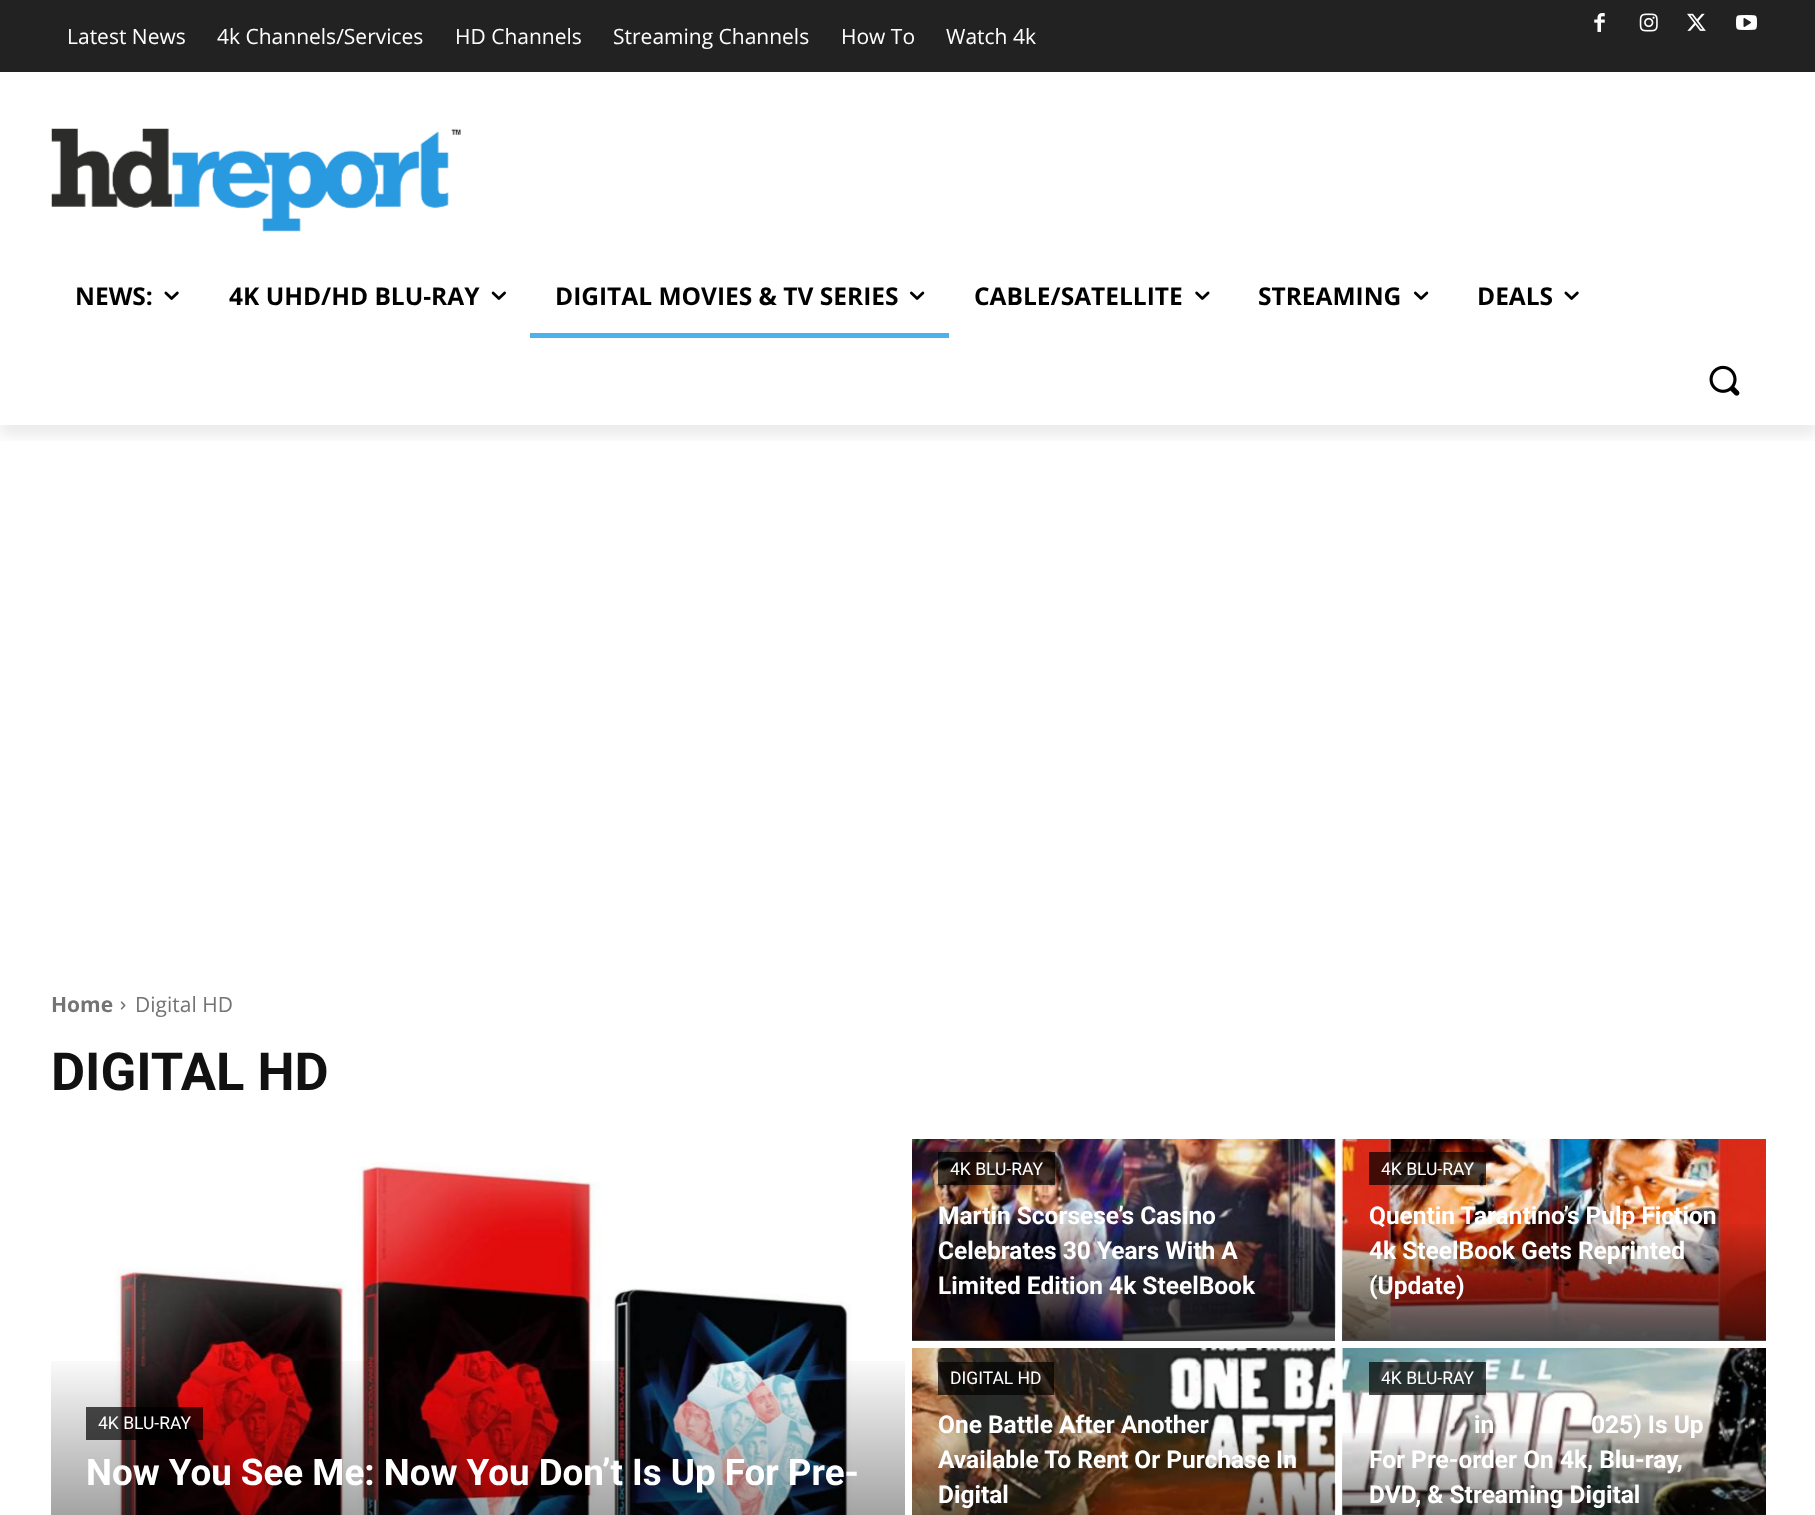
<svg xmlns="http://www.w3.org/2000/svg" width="1815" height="1515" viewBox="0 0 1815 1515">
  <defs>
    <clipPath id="clip1"><path d="M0 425h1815v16H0z"/></clipPath>
    <linearGradient id="g1" gradientUnits="userSpaceOnUse" x1="478" y1="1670" x2="478" y2="1139"><stop offset="0" stop-color="#000" stop-opacity="0.7"/><stop offset="0.6" stop-color="#000" stop-opacity="0"/><stop offset="1" stop-color="#000" stop-opacity="0"/></linearGradient>
    <linearGradient id="g2" gradientUnits="userSpaceOnUse" x1="1124" y1="1341" x2="1124" y2="1139"><stop offset="0" stop-color="#000" stop-opacity="0.7"/><stop offset="0.6" stop-color="#000" stop-opacity="0"/><stop offset="1" stop-color="#000" stop-opacity="0"/></linearGradient>
    <linearGradient id="g3" gradientUnits="userSpaceOnUse" x1="1554" y1="1341" x2="1554" y2="1139"><stop offset="0" stop-color="#000" stop-opacity="0.7"/><stop offset="0.6" stop-color="#000" stop-opacity="0"/><stop offset="1" stop-color="#000" stop-opacity="0"/></linearGradient>
    <linearGradient id="g4" gradientUnits="userSpaceOnUse" x1="1124" y1="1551" x2="1124" y2="1348"><stop offset="0" stop-color="#000" stop-opacity="0.7"/><stop offset="0.6" stop-color="#000" stop-opacity="0"/><stop offset="1" stop-color="#000" stop-opacity="0"/></linearGradient>
    <linearGradient id="g5" gradientUnits="userSpaceOnUse" x1="1554" y1="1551" x2="1554" y2="1348"><stop offset="0" stop-color="#000" stop-opacity="0.7"/><stop offset="0.6" stop-color="#000" stop-opacity="0"/><stop offset="1" stop-color="#000" stop-opacity="0"/></linearGradient>
  </defs>
  <rect width="100%" height="100%" fill="#fff"/>
  <path d="M0 0h1815v72H0z" fill="#222"/>
  <image x="1594" y="13" width="11" height="19" href="img/1.png"/>
  <image x="1639" y="13" width="19" height="19" href="img/2.png"/>
  <image x="1687" y="13" width="19" height="18" href="img/3.png"/>
  <image x="1736" y="15" width="21" height="15" href="img/4.png"/>
  <image x="51" y="128" width="410" height="104" href="img/5.png"/>
  <g clip-path="url(#clip1)">
    <path d="M0 11h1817v425H0z" fill="#00000014" filter="blur(7px)"/>
  </g>
  <image x="164" y="291" width="15" height="9" href="img/6.png"/>
  <image x="491" y="291" width="15" height="9" href="img/7.png"/>
  <image x="910" y="291" width="15" height="9" href="img/8.png"/>
  <path d="M530 333h419v5H530z" fill="#4db2ec"/>
  <image x="1195" y="291" width="15" height="9" href="img/9.png"/>
  <image x="1414" y="291" width="15" height="9" href="img/8.png"/>
  <image x="1564" y="291" width="15" height="9" href="img/6.png"/>
  <image x="1709" y="365" width="31" height="31" href="img/10.png"/>
  <image x="120" y="1001" width="6" height="9" href="img/11.png"/>
  <image x="114" y="1162" width="738" height="353" href="img/12.png"/>
  <path d="M51 1361h854v154H51z" fill="url(#g1)"/>
  <path d="M86 1407h117v33H86z" fill="#000000b3"/>
  <image x="912" y="1139" width="424" height="202" href="img/13.png"/>
  <path d="M912 1224h423v117H912z" fill="url(#g2)"/>
  <path d="M938 1152h117v33H938z" fill="#000000b3"/>
  <image x="1341" y="1139" width="425" height="202" href="img/14.png"/>
  <path d="M1342 1224h424v117H1342z" fill="url(#g3)"/>
  <path d="M1369 1152h117v33H1369z" fill="#000000b3"/>
  <image x="912" y="1348" width="424" height="167" href="img/15.png"/>
  <path d="M912 1433h423v82H912z" fill="url(#g4)"/>
  <path d="M938 1362h116v33H938z" fill="#000000b3"/>
  <image x="1341" y="1348" width="425" height="167" href="img/16.png"/>
  <path d="M1342 1433h424v82H1342z" fill="url(#g5)"/>
  <path d="M1369 1362h117v33H1369z" fill="#000000b3"/>
  <g font-family="Open Sans" font-size="21" fill="#fff">
    <text x="67" y="44">Latest News</text>
    <text x="217" y="44">4k Channels/Services</text>
    <text x="455" y="44">HD Channels</text>
    <text x="613" y="44">Streaming Channels</text>
    <text x="841" y="44">How To</text>
    <text x="946" y="44">Watch 4k</text>
  </g>
  <g font-family="Open Sans" font-size="24.5" font-weight="bold" fill="#000">
    <text x="75" y="305">NEWS:</text>
    <text x="229" y="305">4K UHD/HD BLU-RAY</text>
    <text x="555" y="305">DIGITAL MOVIES &amp; TV SERIES</text>
    <text x="974" y="305">CABLE/SATELLITE</text>
    <text x="1258" y="305">STREAMING</text>
    <text x="1477" y="305">DEALS</text>
  </g>
  <text x="51" y="1012" font-family="Open Sans" font-size="21" font-weight="bold" fill="#747474">Home</text>
  <text x="135" y="1012" font-family="Open Sans" font-size="21" fill="#747474">Digital HD</text>
  <text x="51" y="1090" font-family="Roboto" font-size="52.5" font-weight="bold" fill="#111">DIGITAL HD</text>
  <text x="98" y="1429" font-family="Roboto" font-size="17.5" fill="#fff">4K BLU-RAY</text>
  <text x="86" y="1485" font-family="Roboto" font-size="36.75" font-weight="bold" fill="#fff">Now You See Me: Now You Don’t Is Up For Pre-</text>
  <text x="950" y="1175" font-family="Roboto" font-size="17.5" fill="#fff">4K BLU-RAY</text>
  <g font-family="Roboto" font-size="24.5" font-weight="bold" fill="#fff">
    <text x="938" y="1224">Martin Scorsese’s Casino</text>
    <text x="938" y="1259">Celebrates 30 Years With A</text>
    <text x="938" y="1294">Limited Edition 4k SteelBook</text>
  </g>
  <text x="1381" y="1175" font-family="Roboto" font-size="17.5" fill="#fff">4K BLU-RAY</text>
  <g font-family="Roboto" font-size="24.5" font-weight="bold" fill="#fff">
    <text x="1369" y="1224">Quentin Tarantino’s Pulp Fiction</text>
    <text x="1369" y="1259">4k SteelBook Gets Reprinted</text>
    <text x="1369" y="1294">(Update)</text>
  </g>
  <text x="950" y="1384" font-family="Roboto" font-size="17.5" fill="#fff">DIGITAL HD</text>
  <g font-family="Roboto" font-size="24.5" font-weight="bold" fill="#fff">
    <text x="938" y="1433">One Battle After Another</text>
    <text x="938" y="1468">Available To Rent Or Purchase In</text>
    <text x="938" y="1503">Digital</text>
  </g>
  <text x="1381" y="1384" font-family="Roboto" font-size="17.5" fill="#fff">4K BLU-RAY</text>
  <g font-family="Roboto" font-size="24.5" font-weight="bold" fill="#fff">
    <text x="1474" y="1433">in</text>
    <text x="1591" y="1433">025) Is Up</text>
    <text x="1369" y="1468">For Pre-order On 4k, Blu-ray,</text>
    <text x="1369" y="1503">DVD, &amp; Streaming Digital</text>
  </g>
</svg>
